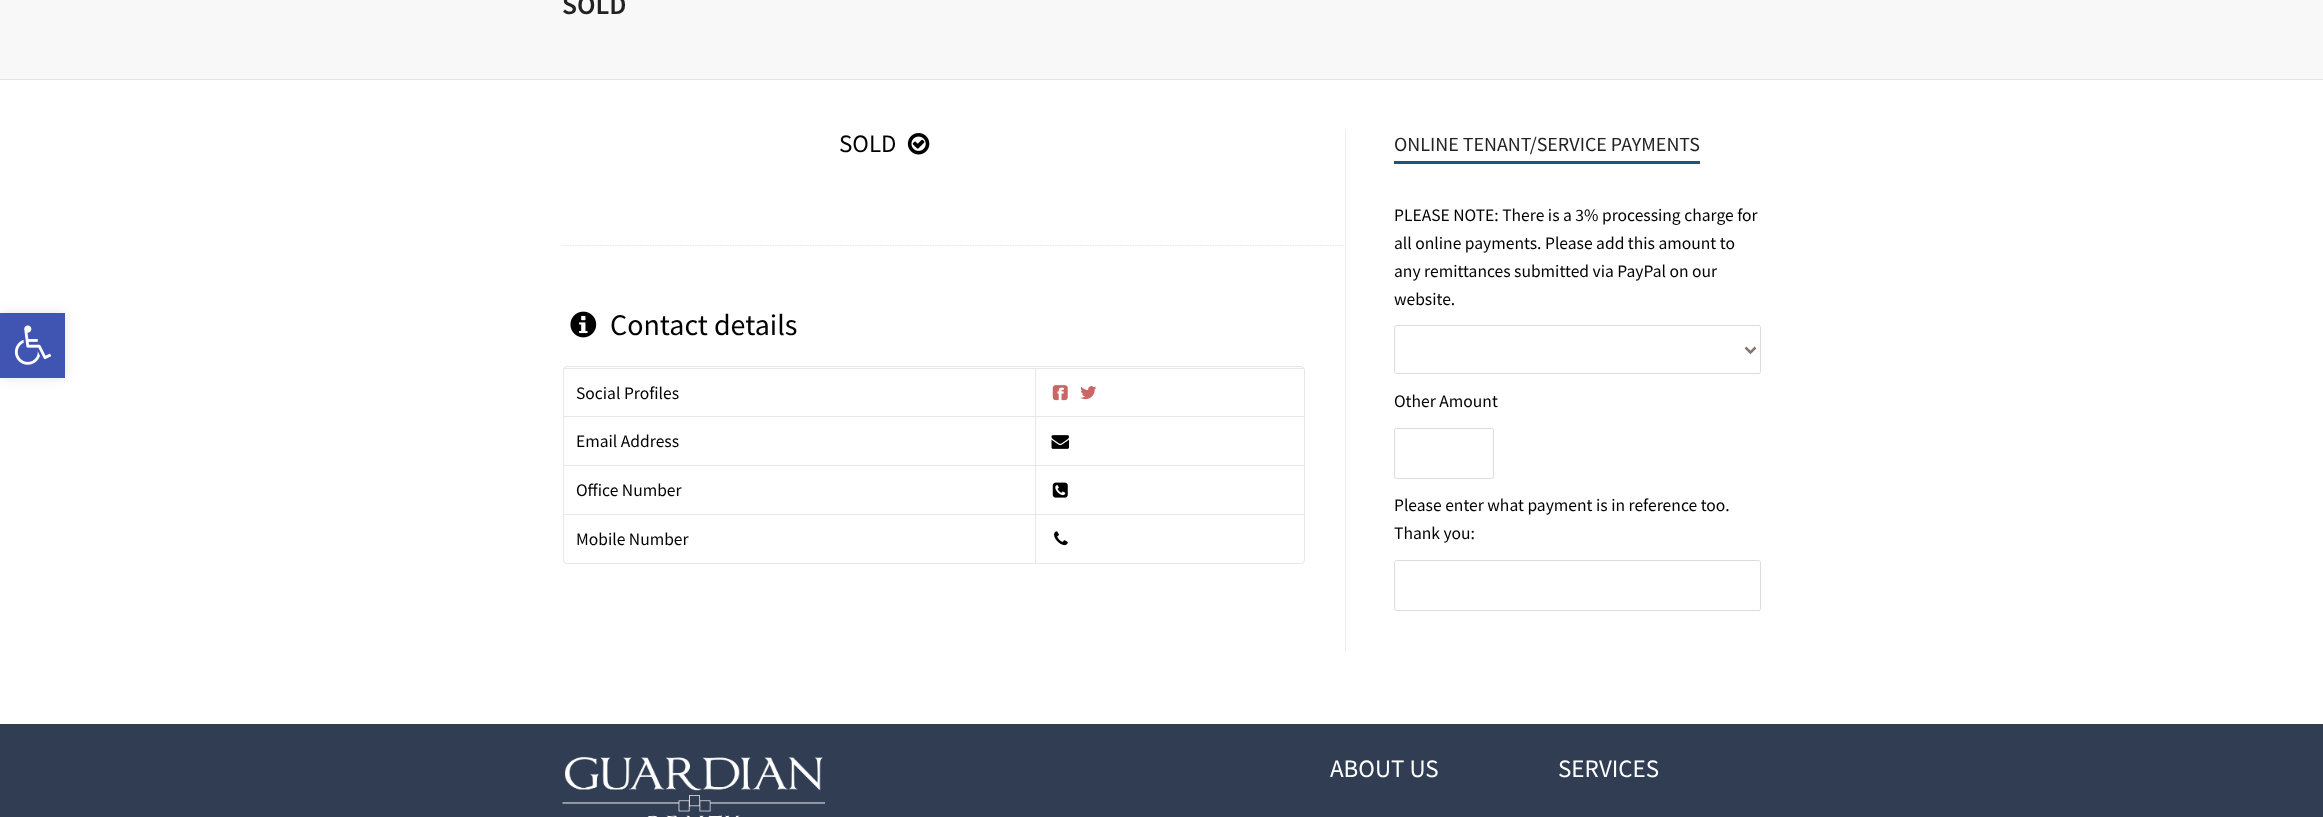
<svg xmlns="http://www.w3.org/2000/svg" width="2323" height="817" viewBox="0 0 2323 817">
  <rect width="100%" height="100%" fill="#fff"/>
  <path d="M0 313h65v65H0z" fill="#0000001a" filter="blur(6px)"/>
  <path d="M0 313h65v65H0z" fill="#4054b2"/>
  <image x="14" y="325" width="38" height="40" href="img/1.png"/>
  <path d="M0 0h2323v79H0z" fill="#f8f8f8"/>
  <path d="M0 79h2323v1H0z" fill="#e4e4e4"/>
  <path d="M1345 130h1v521H1345z" fill="#f0eced"/>
  <image x="907" y="133" width="23" height="22" href="img/2.png"/>
  <path d="M562.5 245.5H1345" fill="none" stroke="#dfdfdf" stroke-width="1.2" stroke-dasharray="1.25 1.25"/>
  <image x="570" y="311" width="27" height="27" href="img/3.png"/>
  <rect x="563.5" y="366.5" width="741" height="197" rx="3.5" fill="none" stroke="#e7e7e7"/>
  <path d="M564 368h740v1H564z" fill="#e7e7e7"/>
  <path d="M1035 368h1v48H1035z" fill="#e7e7e7"/>
  <image x="1052" y="385" width="16" height="16" href="img/4.png"/>
  <image x="1080" y="386" width="17" height="14" href="img/5.png"/>
  <path d="M564 416h740v1H564z" fill="#e7e7e7"/>
  <path d="M1035 416h1v49H1035z" fill="#e7e7e7"/>
  <image x="1051" y="435" width="18" height="14" href="img/6.png"/>
  <path d="M564 465h740v1H564z" fill="#e7e7e7"/>
  <path d="M1035 465h1v49H1035z" fill="#e7e7e7"/>
  <image x="1052" y="482" width="16" height="16" href="img/7.png"/>
  <path d="M564 514h740v1H564z" fill="#e7e7e7"/>
  <path d="M1035 514h1v49H1035z" fill="#e7e7e7"/>
  <image x="1054" y="531" width="14" height="15" href="img/8.png"/>
  <path d="M1394 161h306v3H1394z" fill="#18567a"/>
  <rect x="1394.5" y="325.5" width="366" height="48" rx="2" fill="none" stroke="#dbdbdb"/>
  <path d="M1745.5 347.5L1750.5 352.5L1755.5 347.5" fill="none" stroke="#857672" stroke-width="2.5"/>
  <rect x="1394.5" y="428.5" width="99" height="50" rx="2" fill="none" stroke="#dbdbdb"/>
  <rect x="1394.5" y="560.5" width="366" height="50" rx="2" fill="none" stroke="#dbdbdb"/>
  <path d="M0 724h2323v93H0z" fill="#313d53"/>
  <image x="562" y="756" width="263" height="61" href="img/9.png"/>
  <text x="562" y="14" font-family="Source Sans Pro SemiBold" font-size="27.5" font-weight="600" fill="#222">SOLD</text>
  <text x="839" y="152" font-family="Source Sans Pro" font-size="25" fill="#000">SOLD</text>
  <text x="610" y="335" font-family="Source Sans Pro" font-size="30" fill="#000">Contact details</text>
  <g font-family="Source Sans Pro" font-size="17.5" fill="#000">
    <text x="576" y="399">Social Profiles</text>
    <text x="576" y="447">Email Address</text>
    <text x="576" y="496">Office Number</text>
    <text x="576" y="545">Mobile Number</text>
  </g>
  <text x="1394" y="151" font-family="Source Sans Pro" font-size="20" fill="#222">ONLINE TENANT/SERVICE PAYMENTS</text>
  <g font-family="Source Sans Pro" font-size="17.5" fill="#000">
    <text x="1394" y="221">PLEASE NOTE: There is a 3% processing charge for</text>
    <text x="1394" y="249">all online payments. Please add this amount to</text>
    <text x="1394" y="277">any remittances submitted via PayPal on our</text>
    <text x="1394" y="305">website.</text>
    <text x="1394" y="407">Other Amount</text>
    <text x="1394" y="511">Please enter what payment is in reference too.</text>
    <text x="1394" y="539">Thank you:</text>
  </g>
  <g font-family="Source Sans Pro" font-size="25" fill="#fff">
    <text x="1330" y="777">ABOUT US</text>
    <text x="1558" y="777">SERVICES</text>
  </g>
</svg>
